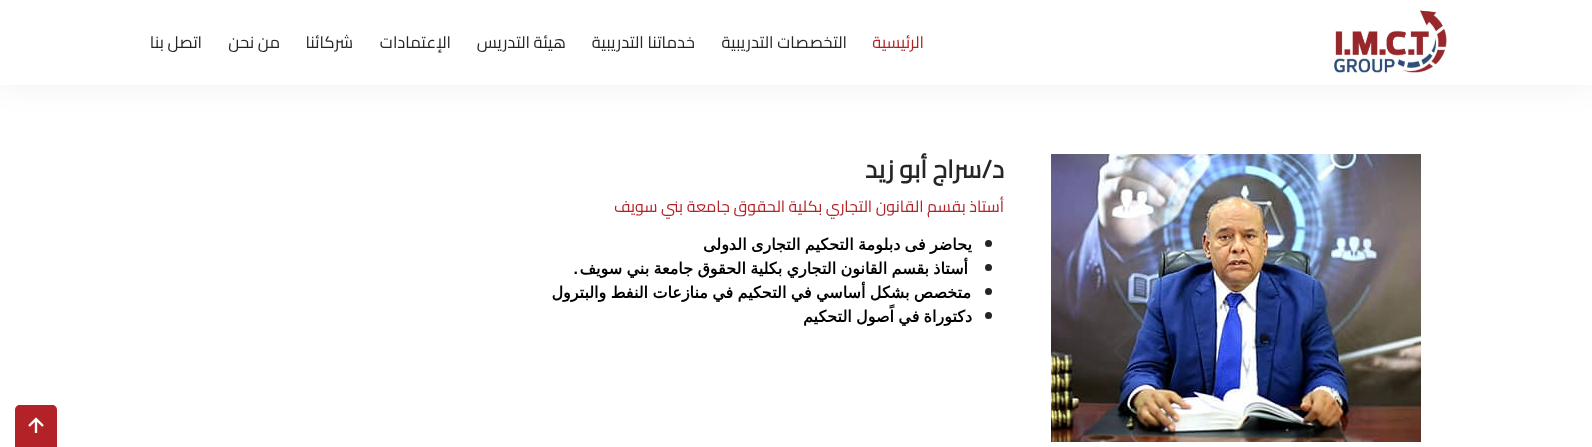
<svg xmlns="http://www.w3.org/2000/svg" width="1592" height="447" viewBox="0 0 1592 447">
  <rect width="100%" height="100%" fill="#fff"/>
  <path d="M0 2h1592v85H0z" fill="#0000000f" filter="blur(14px)"/>
  <path d="M0 0h1592v85H0z" fill="#fff"/>
  <image x="1334" y="9" width="113" height="64" href="img/1.png"/>
  <image x="1051" y="154" width="370" height="288" href="img/2.png"/>
  <circle cx="988.5" cy="243.5" r="3.5" fill="#212529"/>
  <circle cx="988.5" cy="267.5" r="3.5" fill="#212529"/>
  <circle cx="988.5" cy="291.5" r="3.5" fill="#212529"/>
  <circle cx="988.5" cy="315.5" r="3.5" fill="#212529"/>
  <path d="M20 405H52C55 405 57 407 57 410V447H15V410C15 407 17 405 20 405Z" fill="#b32226"/>
  <image x="28" y="417" width="16" height="16" href="img/3.png"/>
  <text x="924" y="48" font-family="Cairo" font-size="16.5" direction="rtl" fill="#b32226">الرئيسية</text>
  <g font-family="Cairo" font-size="16.5" direction="rtl" fill="#252525">
    <text x="847" y="48">التخصصات التدريبية</text>
    <text x="695" y="48">خدماتنا التدريبية</text>
    <text x="566" y="48">هيئة التدريس</text>
    <text x="451" y="48">الإعتمادات</text>
    <text x="353" y="48">شركائنا</text>
    <text x="280" y="48">من نحن</text>
    <text x="202" y="48">اتصل بنا</text>
  </g>
  <text x="1004" y="178" font-family="Cairo" font-size="25" font-weight="bold" direction="rtl" fill="#252525">د/سراج أبو زيد</text>
  <text x="1004" y="212" font-family="Cairo" font-size="16" direction="rtl" fill="#b32226">أستاذ بقسم القانون التجاري بكلية الحقوق جامعة بني سويف</text>
  <g font-family="DejaVu Sans" font-size="16" font-weight="bold" direction="rtl" fill="#000">
    <text x="972" y="250" word-spacing="-0.75">يحاضر فى دبلومة التحكيم التجارى الدولى</text>
    <text x="968" y="274" word-spacing="-0.75">أستاذ بقسم القانون التجاري بكلية الحقوق جامعة بني سويف</text>
  </g>
  <text x="578" y="274" font-family="Liberation Sans" font-size="16" font-weight="bold" direction="rtl" fill="#000">.</text>
  <g font-family="DejaVu Sans" font-size="16" font-weight="bold" direction="rtl" fill="#000">
    <text x="971" y="298" word-spacing="-0.75">متخصص بشكل أساسي في التحكيم في منازعات النفط والبترول</text>
    <text x="972" y="322" word-spacing="-0.75">دكتوراة في اًصول التحكيم</text>
  </g>
</svg>
